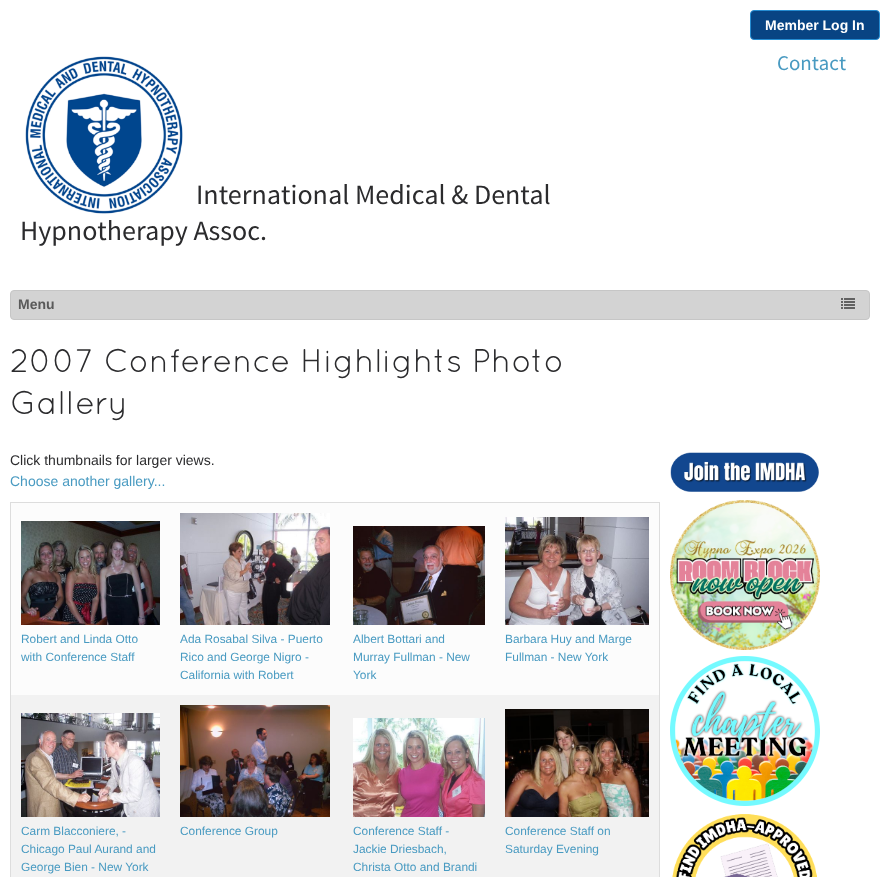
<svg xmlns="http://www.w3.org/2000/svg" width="880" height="877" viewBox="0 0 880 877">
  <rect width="100%" height="100%" fill="#fff"/>
  <rect x="750.5" y="10.5" width="129" height="29" rx="3.5" fill="#084483" stroke="#258cd1"/>
  <image x="25" y="56" width="158" height="158" href="img/1.png"/>
  <rect x="10.5" y="290.5" width="859" height="29" rx="3.5" fill="#d3d3d3" stroke="#c6c6c6"/>
  <image x="841" y="298" width="14" height="11" href="img/2.png"/>
  <path d="M10 502h650v1H10z" fill="#ddd"/>
  <path d="M659 502h1v375H659z" fill="#ddd"/>
  <path d="M10 502h1v375H10z" fill="#ddd"/>
  <path d="M11 503h648v192H11z" fill="#fcfcfc"/>
  <image x="21" y="521" width="139" height="104" href="img/3.png"/>
  <image x="180" y="513" width="150" height="112" href="img/4.png"/>
  <image x="353" y="526" width="132" height="99" href="img/5.png"/>
  <image x="505" y="517" width="144" height="108" href="img/6.png"/>
  <path d="M11 695h648v182H11z" fill="#f2f2f2"/>
  <image x="21" y="713" width="139" height="104" href="img/7.png"/>
  <image x="180" y="705" width="150" height="112" href="img/8.png"/>
  <image x="353" y="718" width="132" height="99" href="img/9.png"/>
  <image x="505" y="709" width="144" height="108" href="img/10.png"/>
  <image x="670" y="452" width="149" height="40" href="img/11.png"/>
  <image x="670" y="500" width="150" height="150" href="img/12.png"/>
  <image x="670" y="656" width="150" height="150" href="img/13.png"/>
  <image x="672" y="814" width="145" height="63" href="img/14.png"/>
  <text x="765" y="30" font-family="Liberation Sans" font-size="14" font-weight="bold" fill="#fff">Member Log In</text>
  <text x="777" y="70" font-family="Source Sans Pro" font-size="21" fill="#489ac1">Contact</text>
  <g font-family="Source Sans Pro" font-size="28" fill="#2b2b2d">
    <text x="196" y="204">International Medical &amp; Dental</text>
    <text x="20" y="240">Hypnotherapy Assoc.</text>
  </g>
  <text x="18" y="309" font-family="Liberation Sans" font-size="14" font-weight="bold" fill="#5a5a5a">Menu</text>
  <g font-family="Quicksand" font-size="32.7" fill="#2b2b2d">
    <text x="10" y="372">2007 Conference Highlights Photo</text>
    <text x="10" y="414">Gallery</text>
  </g>
  <text x="10" y="465" font-family="Liberation Sans" font-size="14" fill="#2b2b2d">Click thumbnails for larger views.</text>
  <text x="10" y="486" font-family="Liberation Sans" font-size="14" fill="#489ac1">Choose another gallery...</text>
  <g font-family="Liberation Sans" font-size="11.9" fill="#489ac1">
    <text x="21" y="643">Robert and Linda Otto</text>
    <text x="21" y="661">with Conference Staff</text>
    <text x="180" y="643">Ada Rosabal Silva - Puerto</text>
    <text x="180" y="661">Rico and George Nigro -</text>
    <text x="180" y="679">California with Robert</text>
    <text x="353" y="643">Albert Bottari and</text>
    <text x="353" y="661">Murray Fullman - New</text>
    <text x="353" y="679">York</text>
    <text x="505" y="643">Barbara Huy and Marge</text>
    <text x="505" y="661">Fullman - New York</text>
    <text x="21" y="835">Carm Blacconiere, -</text>
    <text x="21" y="853">Chicago Paul Aurand and</text>
    <text x="21" y="871">George Bien - New York</text>
    <text x="180" y="835">Conference Group</text>
    <text x="353" y="835">Conference Staff -</text>
    <text x="353" y="853">Jackie Driesbach,</text>
    <text x="353" y="871">Christa Otto and Brandi</text>
    <text x="505" y="835">Conference Staff on</text>
    <text x="505" y="853">Saturday Evening</text>
  </g>
</svg>
